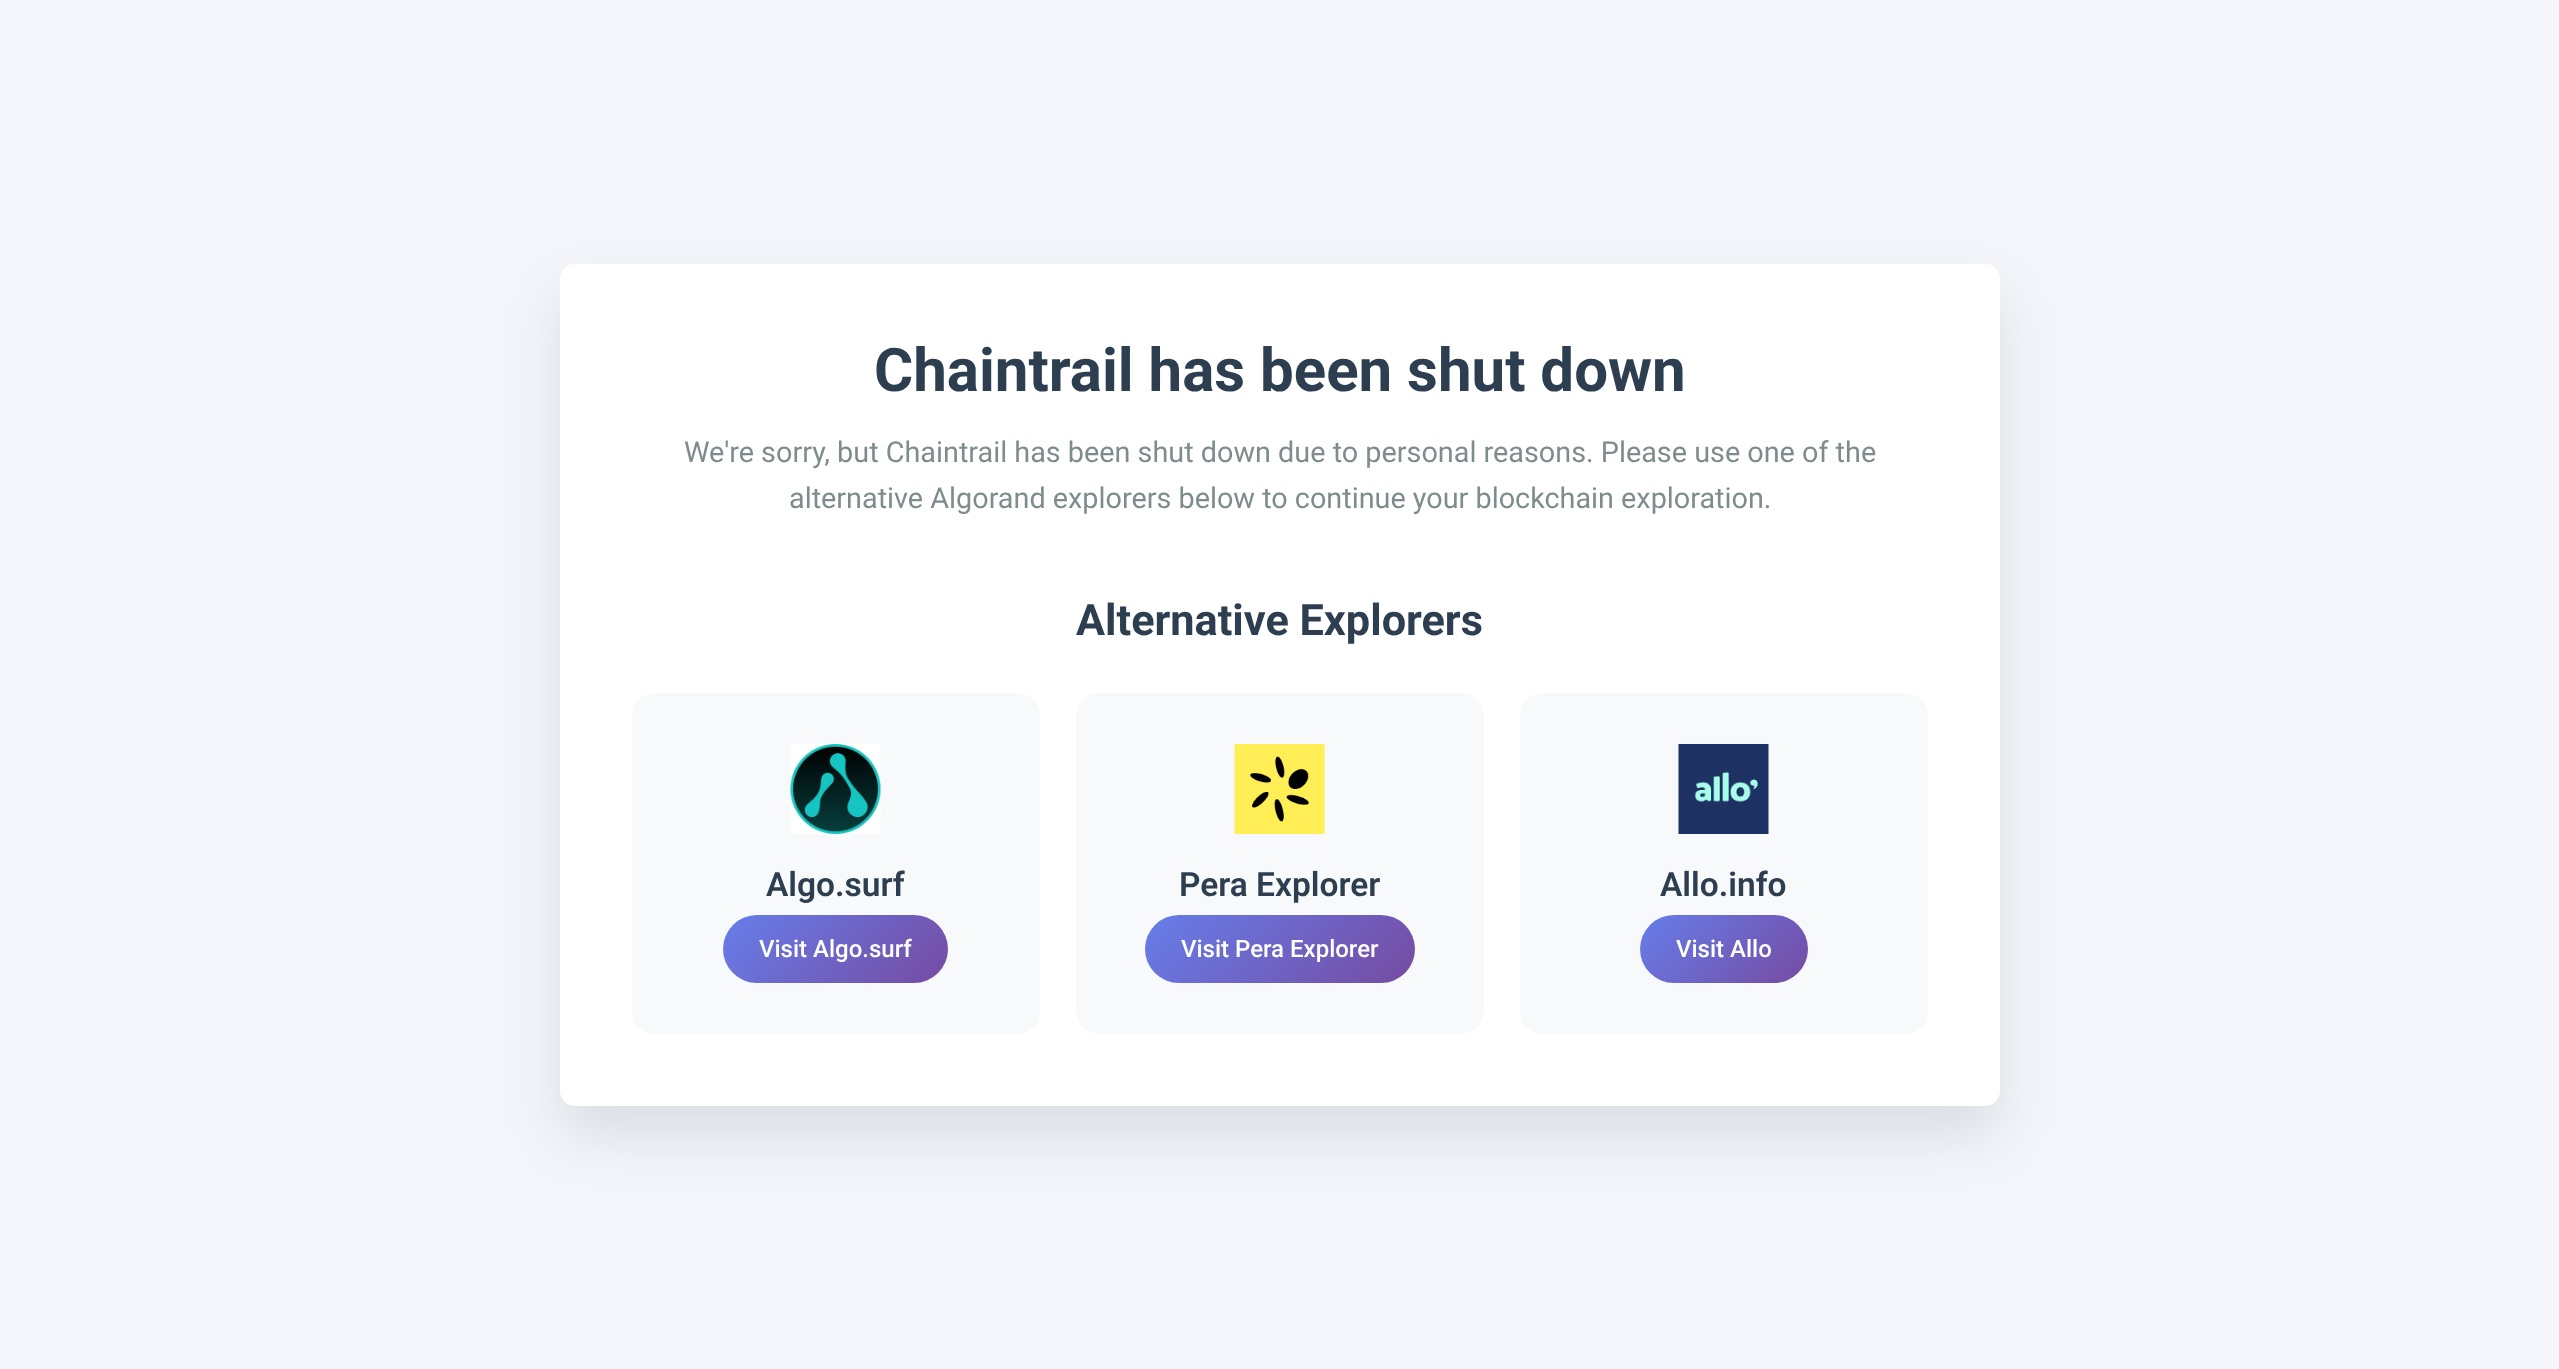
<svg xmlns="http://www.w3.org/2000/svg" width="2559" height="1369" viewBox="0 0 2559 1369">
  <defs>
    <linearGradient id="g1" gradientUnits="userSpaceOnUse" x1="762" y1="876" x2="909" y2="1022"><stop offset="0" stop-color="#667eea"/><stop offset="1" stop-color="#764ba2"/></linearGradient>
    <linearGradient id="g2" gradientUnits="userSpaceOnUse" x1="1195" y1="864" x2="1364" y2="1033"><stop offset="0" stop-color="#667eea"/><stop offset="1" stop-color="#764ba2"/></linearGradient>
    <linearGradient id="g3" gradientUnits="userSpaceOnUse" x1="1665" y1="890" x2="1782" y2="1008"><stop offset="0" stop-color="#667eea"/><stop offset="1" stop-color="#764ba2"/></linearGradient>
  </defs>
  <rect width="100%" height="100%" fill="#f4f6fb"/>
  <rect x="560" y="294" width="1440" height="842" rx="15" fill="#0000001a" filter="blur(30px)"/>
  <rect x="560" y="264" width="1440" height="842" rx="15" fill="#fff"/>
  <rect x="632" y="693" width="408" height="341" rx="23" fill="#f8f9fa"/>
  <image x="790" y="744" width="91" height="90" href="img/1.png"/>
  <rect x="723" y="915" width="225" height="68" rx="34" fill="url(#g1)"/>
  <rect x="1076" y="693" width="408" height="341" rx="23" fill="#f8f9fa"/>
  <image x="1234" y="744" width="91" height="90" href="img/2.png"/>
  <rect x="1145" y="915" width="270" height="68" rx="34" fill="url(#g2)"/>
  <rect x="1520" y="693" width="408" height="341" rx="23" fill="#f8f9fa"/>
  <image x="1678" y="744" width="91" height="90" href="img/3.png"/>
  <rect x="1640" y="915" width="168" height="68" rx="34" fill="url(#g3)"/>
  <text x="874" y="391" font-family="Roboto" font-size="60" font-weight="bold" fill="#2c3e50">Chaintrail has been shut down</text>
  <g font-family="Roboto" font-size="28.8" fill="#7f8c8d">
    <text x="684" y="462">We're sorry, but Chaintrail has been shut down due to personal reasons. Please use one of the</text>
    <text x="789" y="508">alternative Algorand explorers below to continue your blockchain exploration.</text>
  </g>
  <text x="1076" y="635" font-family="Roboto" font-size="43.25" font-weight="bold" fill="#2c3e50">Alternative Explorers</text>
  <text x="766" y="896" font-family="Roboto" font-size="33.5" font-weight="600" fill="#2c3e50">Algo.surf</text>
  <text x="759" y="957" font-family="Roboto" font-size="24" font-weight="500" fill="#fff">Visit Algo.surf</text>
  <text x="1179" y="896" font-family="Roboto" font-size="33.5" font-weight="600" fill="#2c3e50">Pera Explorer</text>
  <text x="1181" y="957" font-family="Roboto" font-size="24" font-weight="500" fill="#fff">Visit Pera Explorer</text>
  <text x="1660" y="896" font-family="Roboto" font-size="33.5" font-weight="600" fill="#2c3e50">Allo.info</text>
  <text x="1676" y="957" font-family="Roboto" font-size="24" font-weight="500" fill="#fff">Visit Allo</text>
</svg>
